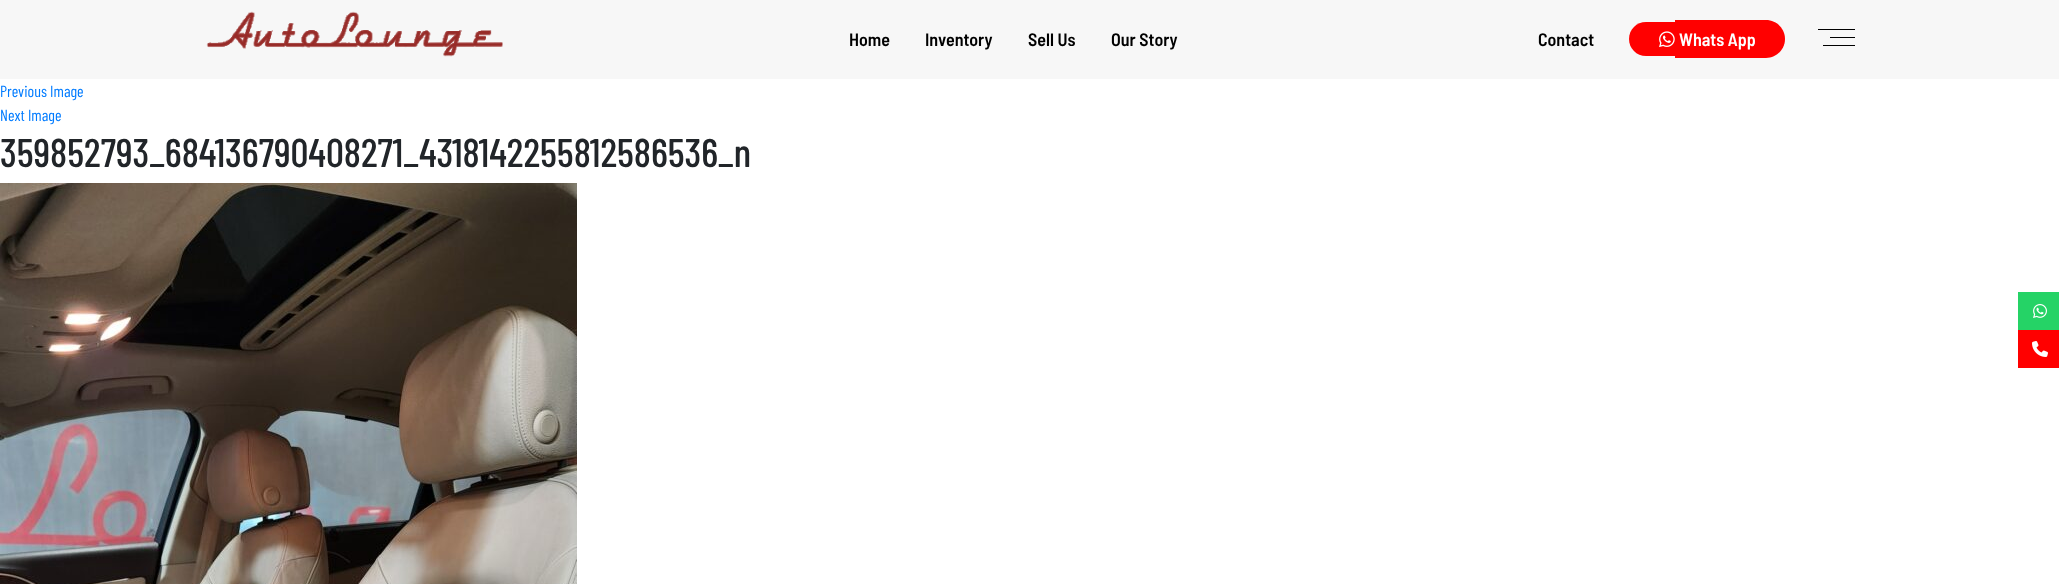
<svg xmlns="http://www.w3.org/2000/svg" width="2059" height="584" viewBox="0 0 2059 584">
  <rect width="100%" height="100%" fill="#fff"/>
  <path d="M0 0h2059v79H0z" fill="#f7f7f7"/>
  <image x="206" y="11" width="297" height="46" href="img/1.png"/>
  <path d="M1646 22H1675V56H1646C1636.5 56 1629 48.5 1629 39C1629 29.5 1636.5 22 1646 22Z" fill="#f00"/>
  <path d="M1675 20H1766C1776.5 20 1785 28.5 1785 39C1785 49.5 1776.5 58 1766 58H1675Z" fill="#f00"/>
  <image x="1659" y="31" width="16" height="17" href="img/2.png"/>
  <path d="M1818 29h37v1H1818z" fill="#000"/>
  <path d="M1830 37h25v1H1830z" fill="#000"/>
  <path d="M1823 45h32v1H1823z" fill="#000"/>
  <image x="0" y="183" width="577" height="401" href="img/3.png"/>
  <path d="M2018 292h41v38H2018z" fill="#25d366"/>
  <image x="2033" y="304" width="14" height="14" href="img/4.png"/>
  <path d="M2018 330h41v38H2018z" fill="#f00"/>
  <image x="2032" y="341" width="16" height="16" href="img/5.png"/>
  <g font-family="Barlow Semi Condensed" font-size="18" font-weight="600" fill="#000">
    <text x="849" y="46">Home</text>
    <text x="925" y="46">Inventory</text>
    <text x="1028" y="46">Sell Us</text>
    <text x="1111" y="46">Our Story</text>
    <text x="1538" y="46">Contact</text>
  </g>
  <text x="1679" y="46" font-family="Barlow Semi Condensed" font-size="18" font-weight="600" fill="#fff">Whats App</text>
  <g font-family="Barlow Condensed" font-size="16" fill="#007bff">
    <text x="0" y="97">Previous Image</text>
    <text x="0" y="121">Next Image</text>
  </g>
  <text x="0" y="167" font-family="Barlow Condensed" font-size="40" font-weight="500" fill="#212529">359852793_684136790408271_4318142255812586536_n</text>
</svg>
